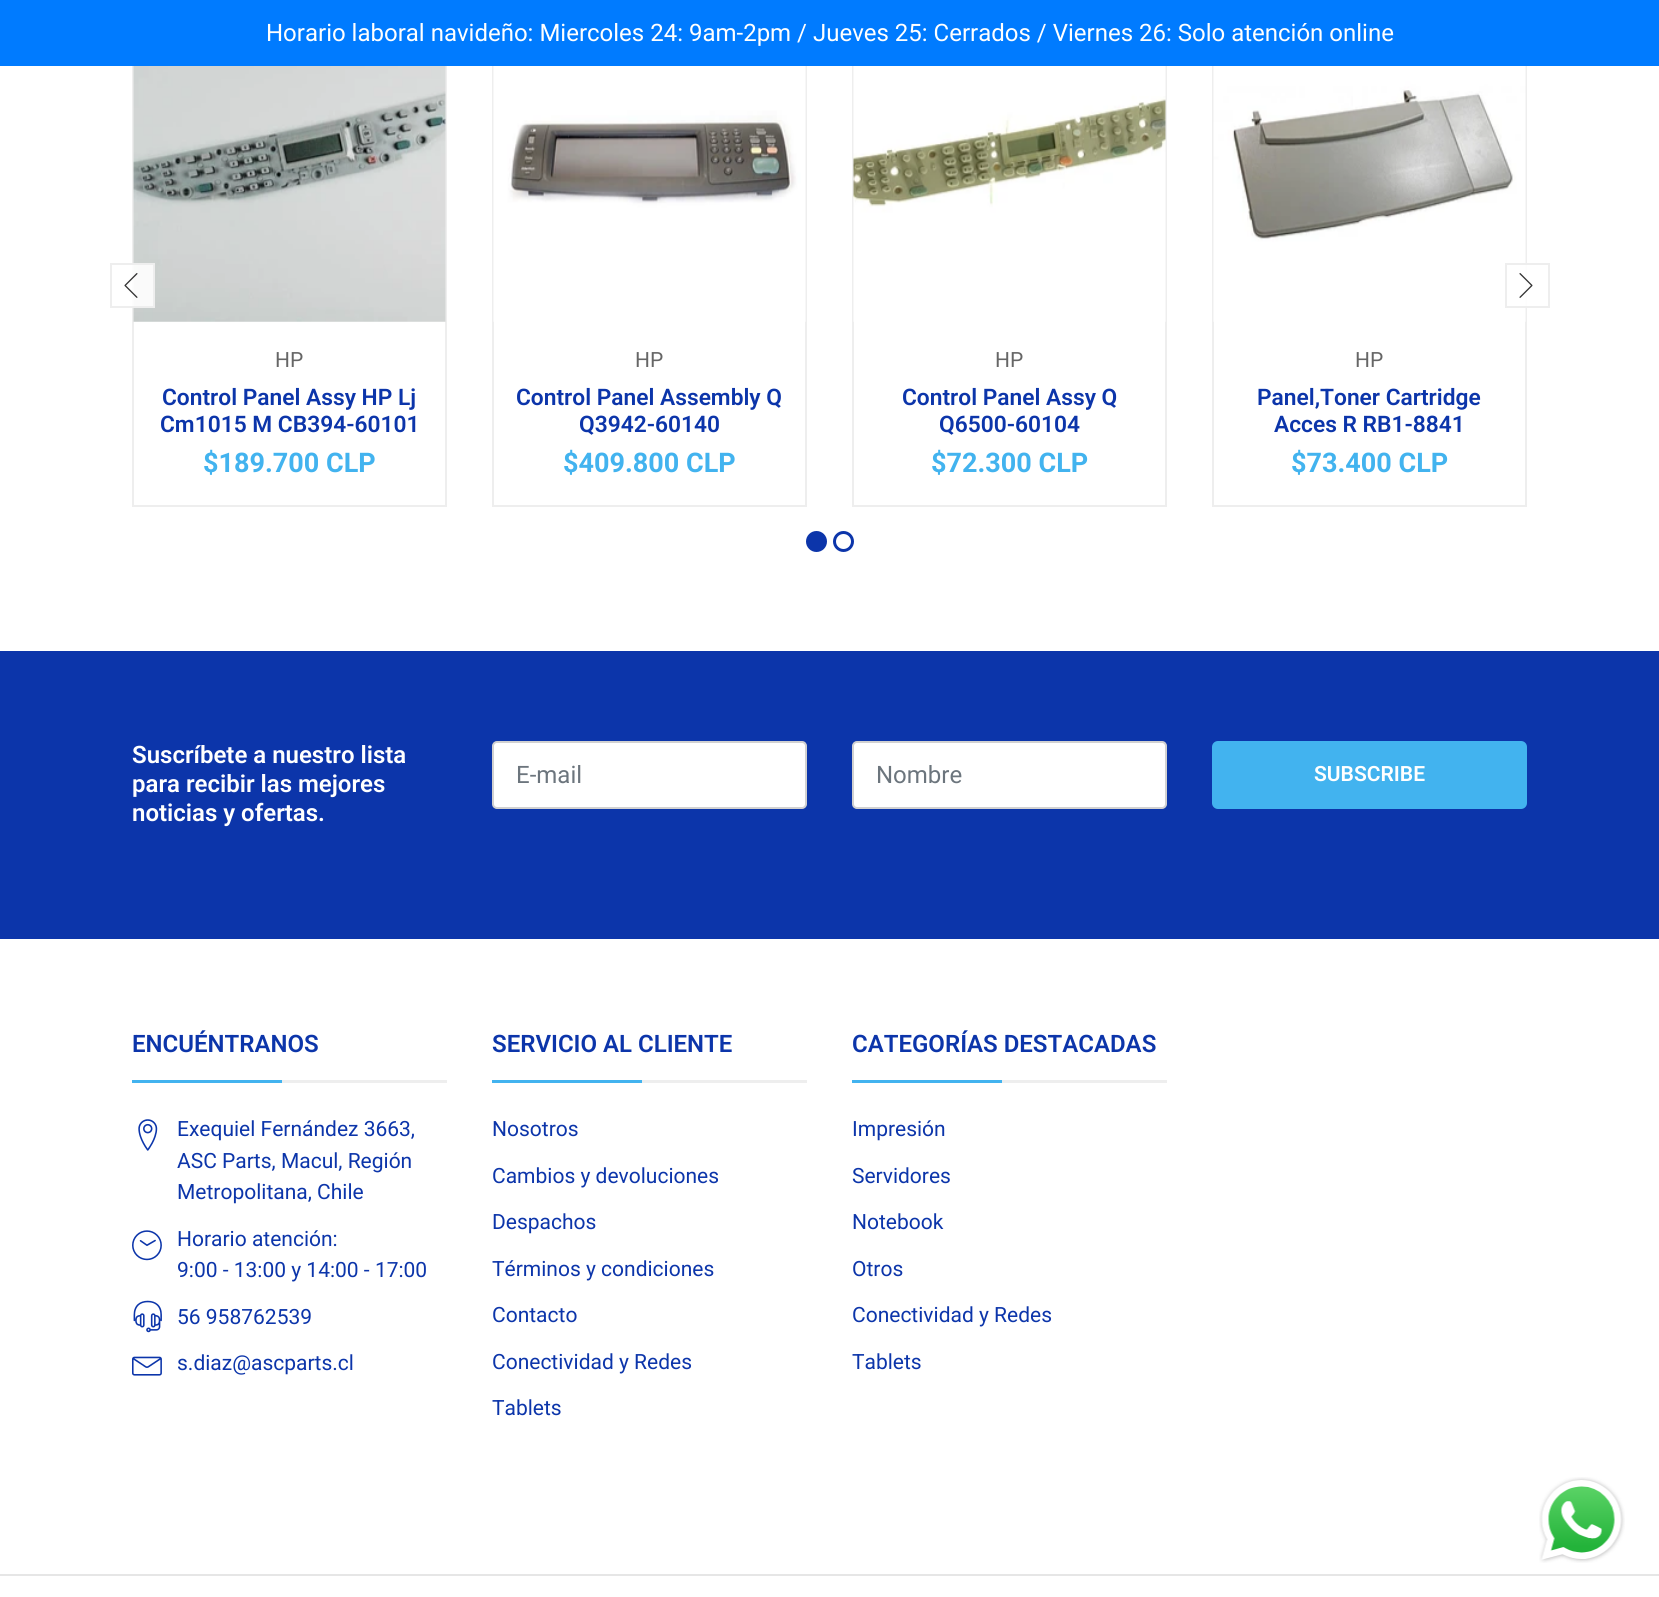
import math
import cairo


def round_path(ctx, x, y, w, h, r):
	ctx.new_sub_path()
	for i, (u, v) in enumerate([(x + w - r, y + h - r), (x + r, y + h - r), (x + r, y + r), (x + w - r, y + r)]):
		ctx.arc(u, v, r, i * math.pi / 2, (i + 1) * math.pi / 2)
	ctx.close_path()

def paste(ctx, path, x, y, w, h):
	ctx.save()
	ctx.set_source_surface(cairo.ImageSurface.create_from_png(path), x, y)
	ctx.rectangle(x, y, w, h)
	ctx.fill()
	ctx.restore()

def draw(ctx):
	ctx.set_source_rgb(1, 1, 1)
	ctx.paint()
	ctx.rectangle(133, 10, 313, 496)
	ctx.set_source_rgb(0.933, 0.933, 0.933)
	ctx.stroke()
	ctx.rectangle(493, 10, 313, 496)
	ctx.stroke()
	ctx.rectangle(853, 10, 313, 496)
	ctx.stroke()
	ctx.rectangle(1213, 10, 313, 496)
	ctx.stroke()
	ctx.set_source_rgb(0, 0.482, 1)
	ctx.rectangle(0, 0, 1659, 66)
	ctx.fill()
	ctx.select_font_face('Roboto')
	ctx.set_font_size(24)
	ctx.set_source_rgb(1, 1, 1)
	ctx.move_to(266, 41)
	ctx.show_text('Horario laboral navideño: Miercoles 24: 9am-2pm / Jueves 25: Cerrados / Viernes 26: Solo atención online')
	paste(ctx, 'media/3.png', 133, 66, 313, 256)
	ctx.set_source_rgba(1, 1, 1, 0.9)
	ctx.rectangle(132, 265, 21, 41)
	ctx.fill()
	ctx.rectangle(111, 264, 43, 43)
	ctx.set_source_rgb(0.933, 0.933, 0.933)
	ctx.stroke()
	paste(ctx, 'media/1.png', 124, 273, 14, 25)
	paste(ctx, 'media/6.png', 1213, 66, 313, 256)
	ctx.set_source_rgba(1, 1, 1, 0.9)
	ctx.rectangle(1525, 265, 2, 41)
	ctx.fill()
	ctx.rectangle(1506, 264, 43, 43)
	ctx.set_source_rgb(0.933, 0.933, 0.933)
	ctx.stroke()
	paste(ctx, 'media/2.png', 1519, 273, 14, 25)
	ctx.set_font_size(21)
	ctx.set_source_rgb(0.4, 0.4, 0.4)
	ctx.move_to(275, 367)
	ctx.show_text('HP')
	ctx.select_font_face('Roboto SemiBold')
	ctx.set_font_size(22.75)
	ctx.set_source_rgb(0.047, 0.208, 0.667)
	ctx.move_to(162, 405)
	ctx.show_text('Control Panel Assy HP Lj')
	ctx.move_to(160, 432)
	ctx.show_text('Cm1015 M CB394-60101')
	ctx.select_font_face('Roboto', cairo.FONT_SLANT_NORMAL, cairo.FONT_WEIGHT_BOLD)
	ctx.set_font_size(27)
	ctx.set_source_rgb(0.259, 0.702, 0.937)
	ctx.move_to(203, 472)
	ctx.show_text('$189.700 CLP')
	paste(ctx, 'media/4.png', 493, 66, 313, 256)
	ctx.select_font_face('Roboto')
	ctx.set_font_size(21)
	ctx.set_source_rgb(0.4, 0.4, 0.4)
	ctx.move_to(635, 367)
	ctx.show_text('HP')
	ctx.select_font_face('Roboto SemiBold')
	ctx.set_font_size(22.75)
	ctx.set_source_rgb(0.047, 0.208, 0.667)
	ctx.move_to(516, 405)
	ctx.show_text('Control Panel Assembly Q')
	ctx.move_to(579, 432)
	ctx.show_text('Q3942-60140')
	ctx.select_font_face('Roboto', cairo.FONT_SLANT_NORMAL, cairo.FONT_WEIGHT_BOLD)
	ctx.set_font_size(27)
	ctx.set_source_rgb(0.259, 0.702, 0.937)
	ctx.move_to(563, 472)
	ctx.show_text('$409.800 CLP')
	paste(ctx, 'media/5.png', 853, 66, 313, 256)
	ctx.select_font_face('Roboto')
	ctx.set_font_size(21)
	ctx.set_source_rgb(0.4, 0.4, 0.4)
	ctx.move_to(995, 367)
	ctx.show_text('HP')
	ctx.select_font_face('Roboto SemiBold')
	ctx.set_font_size(22.75)
	ctx.set_source_rgb(0.047, 0.208, 0.667)
	ctx.move_to(902, 405)
	ctx.show_text('Control Panel Assy Q')
	ctx.move_to(939, 432)
	ctx.show_text('Q6500-60104')
	ctx.select_font_face('Roboto', cairo.FONT_SLANT_NORMAL, cairo.FONT_WEIGHT_BOLD)
	ctx.set_font_size(27)
	ctx.set_source_rgb(0.259, 0.702, 0.937)
	ctx.move_to(931, 472)
	ctx.show_text('$72.300 CLP')
	ctx.select_font_face('Roboto')
	ctx.set_font_size(21)
	ctx.set_source_rgb(0.4, 0.4, 0.4)
	ctx.move_to(1355, 367)
	ctx.show_text('HP')
	ctx.select_font_face('Roboto SemiBold')
	ctx.set_font_size(22.75)
	ctx.set_source_rgb(0.047, 0.208, 0.667)
	ctx.move_to(1257, 405)
	ctx.show_text('Panel,Toner Cartridge')
	ctx.move_to(1274, 432)
	ctx.show_text('Acces R RB1-8841')
	ctx.select_font_face('Roboto', cairo.FONT_SLANT_NORMAL, cairo.FONT_WEIGHT_BOLD)
	ctx.set_font_size(27)
	ctx.set_source_rgb(0.259, 0.702, 0.937)
	ctx.move_to(1291, 472)
	ctx.show_text('$73.400 CLP')
	ctx.set_source_rgb(0.047, 0.208, 0.667)
	ctx.new_path()
	ctx.arc(816.5, 541.5, 9, 0, 2 * math.pi)
	ctx.fill_preserve()
	ctx.set_line_width(3)
	ctx.stroke()
	ctx.arc(843.5, 541.5, 9, 0, 2 * math.pi)
	ctx.stroke()
	ctx.rectangle(0, 651, 1659, 288)
	ctx.fill()
	ctx.select_font_face('Roboto SemiBold')
	ctx.set_font_size(24)
	ctx.set_source_rgb(1, 1, 1)
	for x, y, s in [
		(132, 763, 'Suscríbete a nuestro lista'),
		(132, 792, 'para recibir las mejores'),
		(132, 821, 'noticias y ofertas.'),
	]:
		ctx.move_to(x, y)
		ctx.show_text(s)
	round_path(ctx, 493, 742, 313, 66, 4)
	ctx.fill_preserve()
	ctx.set_source_rgb(0.82, 0.82, 0.82)
	ctx.set_line_width(2)
	ctx.stroke()
	ctx.select_font_face('Roboto')
	ctx.set_source_rgb(0.424, 0.459, 0.49)
	ctx.move_to(516, 783)
	ctx.show_text('E-mail')
	ctx.set_source_rgb(1, 1, 1)
	round_path(ctx, 853, 742, 313, 66, 4)
	ctx.fill_preserve()
	ctx.set_source_rgb(0.82, 0.82, 0.82)
	ctx.stroke()
	ctx.set_source_rgb(0.424, 0.459, 0.49)
	ctx.move_to(876, 783)
	ctx.show_text('Nombre')
	ctx.set_source_rgb(0.259, 0.702, 0.937)
	round_path(ctx, 1212, 741, 315, 68, 6)
	ctx.fill()
	ctx.select_font_face('Roboto SemiBold')
	ctx.set_font_size(21)
	ctx.set_source_rgb(1, 1, 1)
	ctx.move_to(1314, 781)
	ctx.show_text('SUBSCRIBE')
	ctx.set_source_rgb(0.933, 0.933, 0.933)
	ctx.rectangle(282, 1080, 165, 3)
	ctx.fill()
	ctx.set_font_size(24)
	ctx.set_source_rgb(0.047, 0.208, 0.667)
	ctx.move_to(132, 1052)
	ctx.show_text('ENCUÉNTRANOS')
	ctx.set_source_rgb(0.259, 0.702, 0.937)
	ctx.rectangle(132, 1080, 150, 3)
	ctx.fill()
	paste(ctx, 'media/7.png', 138, 1119, 20, 32)
	ctx.select_font_face('Roboto')
	ctx.set_font_size(21)
	ctx.set_source_rgb(0.047, 0.208, 0.667)
	for x, y, s in [
		(177, 1136, 'Exequiel Fernández 3663,'),
		(177, 1168, 'ASC Parts, Macul, Región'),
		(177, 1199, 'Metropolitana, Chile'),
	]:
		ctx.move_to(x, y)
		ctx.show_text(s)
	paste(ctx, 'media/8.png', 132, 1230, 30, 31)
	ctx.move_to(177, 1246)
	ctx.show_text('Horario atención:')
	ctx.move_to(177, 1277)
	ctx.show_text('9:00 - 13:00 y 14:00 - 17:00')
	paste(ctx, 'media/9.png', 133, 1300, 29, 33)
	ctx.move_to(177, 1324)
	ctx.show_text('56 958762539')
	paste(ctx, 'media/10.png', 132, 1356, 30, 20)
	ctx.move_to(177, 1370)
	ctx.show_text('s.diaz@ascparts.cl')
	ctx.set_source_rgb(0.933, 0.933, 0.933)
	ctx.rectangle(642, 1080, 165, 3)
	ctx.fill()
	ctx.select_font_face('Roboto SemiBold')
	ctx.set_font_size(24)
	ctx.set_source_rgb(0.047, 0.208, 0.667)
	ctx.move_to(492, 1052)
	ctx.show_text('SERVICIO AL CLIENTE')
	ctx.set_source_rgb(0.259, 0.702, 0.937)
	ctx.rectangle(492, 1080, 150, 3)
	ctx.fill()
	ctx.select_font_face('Roboto')
	ctx.set_font_size(21)
	ctx.set_source_rgb(0.047, 0.208, 0.667)
	for x, y, s in [
		(492, 1136, 'Nosotros'),
		(492, 1183, 'Cambios y devoluciones'),
		(492, 1229, 'Despachos'),
		(492, 1276, 'Términos y condiciones'),
		(492, 1322, 'Contacto'),
		(492, 1369, 'Conectividad y Redes'),
		(492, 1415, 'Tablets'),
	]:
		ctx.move_to(x, y)
		ctx.show_text(s)
	ctx.set_source_rgb(0.933, 0.933, 0.933)
	ctx.rectangle(1002, 1080, 165, 3)
	ctx.fill()
	ctx.select_font_face('Roboto SemiBold')
	ctx.set_font_size(24)
	ctx.set_source_rgb(0.047, 0.208, 0.667)
	ctx.move_to(852, 1052)
	ctx.show_text('CATEGORÍAS DESTACADAS')
	ctx.set_source_rgb(0.259, 0.702, 0.937)
	ctx.rectangle(852, 1080, 150, 3)
	ctx.fill()
	ctx.select_font_face('Roboto')
	ctx.set_font_size(21)
	ctx.set_source_rgb(0.047, 0.208, 0.667)
	for x, y, s in [
		(852, 1136, 'Impresión'),
		(852, 1183, 'Servidores'),
		(852, 1229, 'Notebook'),
		(852, 1276, 'Otros'),
		(852, 1322, 'Conectividad y Redes'),
		(852, 1369, 'Tablets'),
	]:
		ctx.move_to(x, y)
		ctx.show_text(s)
	ctx.set_source_rgb(0.902, 0.902, 0.902)
	ctx.rectangle(0, 1574, 1659, 2)
	ctx.fill()
	paste(ctx, 'media/11.png', 1539, 1477, 86, 86)


surface = cairo.ImageSurface(cairo.FORMAT_RGB24, 1659, 1597)
ctx = cairo.Context(surface)
options = cairo.FontOptions()
options.set_hint_metrics(cairo.HINT_METRICS_OFF)
options.set_hint_style(cairo.HINT_STYLE_NONE)
ctx.set_font_options(options)
ctx.set_miter_limit(4)
draw(ctx)
surface.write_to_png('image.png')
